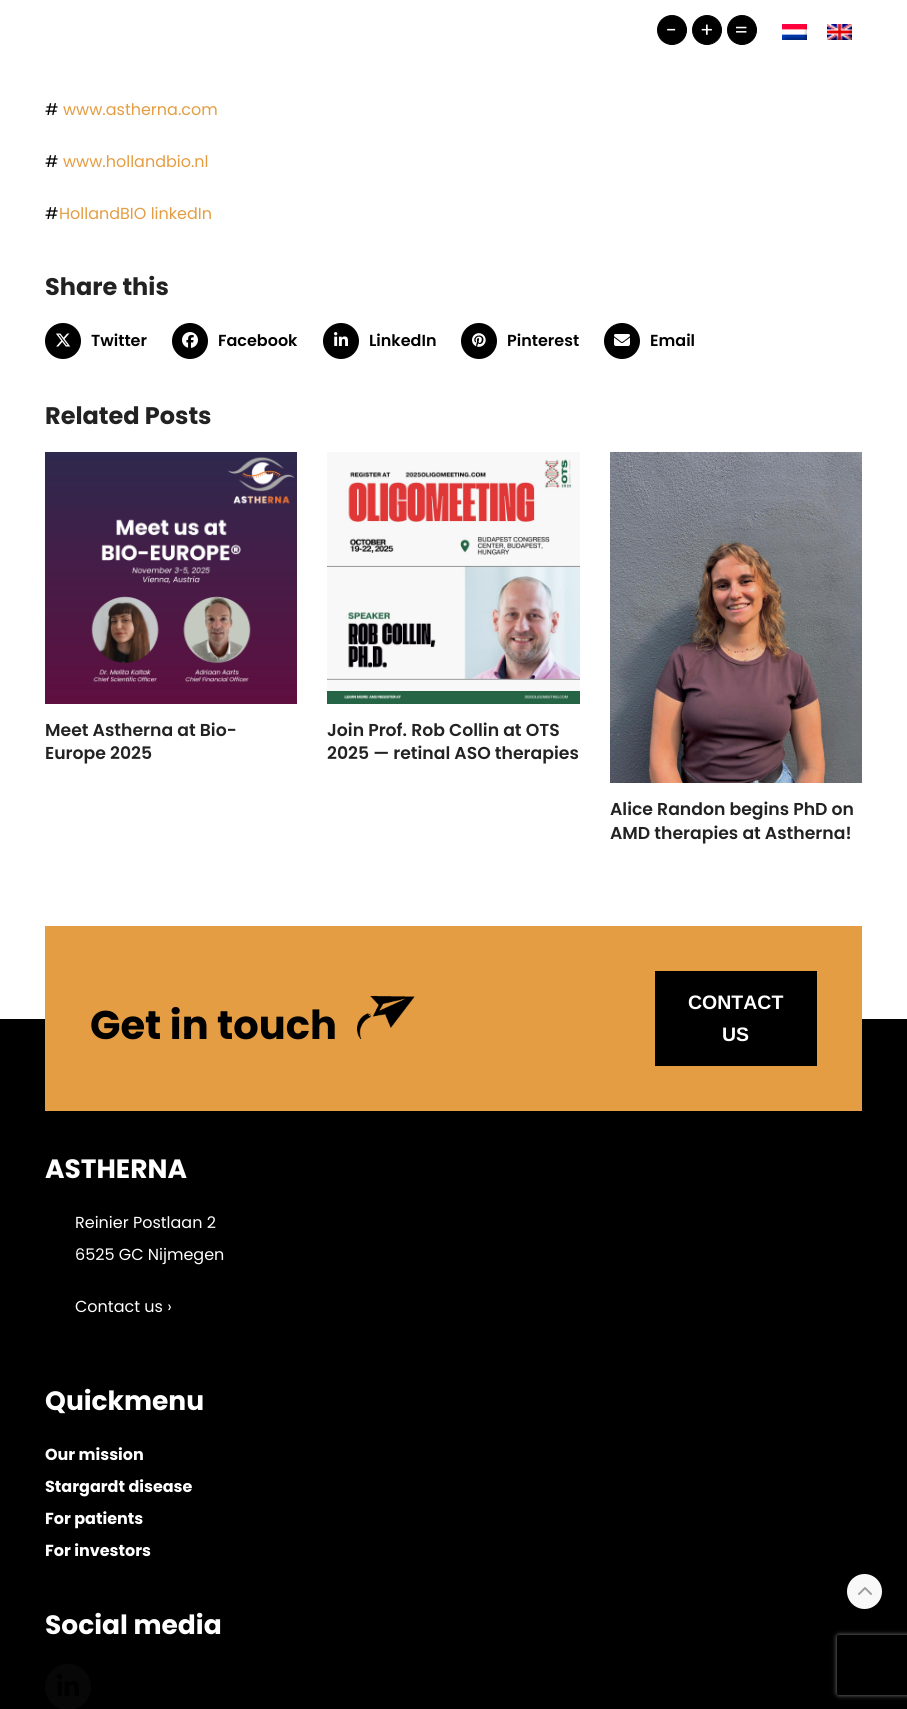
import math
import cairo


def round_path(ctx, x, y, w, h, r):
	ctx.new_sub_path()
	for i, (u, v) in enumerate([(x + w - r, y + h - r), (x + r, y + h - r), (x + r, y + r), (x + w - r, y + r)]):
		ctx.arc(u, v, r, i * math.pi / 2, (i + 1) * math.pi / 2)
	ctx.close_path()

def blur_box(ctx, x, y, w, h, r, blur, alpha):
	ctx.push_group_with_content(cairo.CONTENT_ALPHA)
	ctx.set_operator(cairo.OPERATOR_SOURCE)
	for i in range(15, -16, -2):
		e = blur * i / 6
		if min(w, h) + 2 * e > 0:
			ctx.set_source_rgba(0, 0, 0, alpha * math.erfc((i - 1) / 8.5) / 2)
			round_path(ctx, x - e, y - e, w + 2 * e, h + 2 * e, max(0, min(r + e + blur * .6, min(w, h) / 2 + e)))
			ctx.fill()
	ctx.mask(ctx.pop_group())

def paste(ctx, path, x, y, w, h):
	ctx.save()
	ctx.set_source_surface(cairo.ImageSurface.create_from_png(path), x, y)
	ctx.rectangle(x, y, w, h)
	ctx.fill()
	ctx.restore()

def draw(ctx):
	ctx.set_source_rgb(1, 1, 1)
	ctx.paint()
	ctx.set_source_rgb(0, 0, 0)
	ctx.arc(672, 30, 14.5, 0, 2 * math.pi)
	ctx.fill_preserve()
	ctx.set_line_width(1)
	ctx.stroke()
	ctx.select_font_face('Poppins')
	ctx.set_font_size(20)
	ctx.set_source_rgb(1, 1, 1)
	ctx.move_to(666, 37)
	ctx.show_text('-')
	ctx.set_source_rgb(0, 0, 0)
	ctx.new_path()
	ctx.arc(707, 30, 14.5, 0, 2 * math.pi)
	ctx.fill_preserve()
	ctx.stroke()
	ctx.set_source_rgb(1, 1, 1)
	ctx.move_to(700, 37)
	ctx.show_text('+')
	ctx.set_source_rgb(0, 0, 0)
	ctx.new_path()
	ctx.arc(742, 30, 14.5, 0, 2 * math.pi)
	ctx.fill_preserve()
	ctx.stroke()
	ctx.set_source_rgb(1, 1, 1)
	ctx.move_to(734, 37)
	ctx.show_text('=')
	paste(ctx, 'media/1.png', 782, 24, 25, 16)
	paste(ctx, 'media/2.png', 827, 24, 25, 16)
	ctx.set_font_size(16)
	ctx.set_source_rgb(0, 0, 0)
	ctx.move_to(45, 115)
	ctx.show_text('#')
	ctx.set_source_rgb(0.894, 0.616, 0.263)
	ctx.move_to(63, 115)
	ctx.show_text('www.astherna.com')
	ctx.set_source_rgb(0, 0, 0)
	ctx.move_to(45, 167)
	ctx.show_text('#')
	ctx.set_source_rgb(0.894, 0.616, 0.263)
	ctx.move_to(63, 167)
	ctx.show_text('www.hollandbio.nl')
	ctx.set_source_rgb(0, 0, 0)
	ctx.move_to(45, 219)
	ctx.show_text('#')
	ctx.set_source_rgb(0.894, 0.616, 0.263)
	ctx.move_to(59, 219)
	ctx.show_text('HollandBIO linkedIn')
	ctx.select_font_face('Poppins', cairo.FONT_SLANT_NORMAL, cairo.FONT_WEIGHT_BOLD)
	ctx.set_font_size(24)
	ctx.set_source_rgb(0.133, 0.133, 0.133)
	ctx.move_to(45, 295)
	ctx.show_text('Share this')
	ctx.set_source_rgb(0, 0, 0)
	ctx.new_path()
	ctx.arc(63, 341, 18, 0, 2 * math.pi)
	ctx.fill()
	paste(ctx, 'media/3.png', 56, 333, 15, 14)
	ctx.select_font_face('Poppins SemiBold')
	ctx.set_font_size(16)
	ctx.move_to(91, 346)
	ctx.show_text('Twitter')
	ctx.new_path()
	ctx.arc(190, 341, 18, 0, 2 * math.pi)
	ctx.fill()
	paste(ctx, 'media/4.png', 182, 332, 16, 16)
	ctx.move_to(218, 346)
	ctx.show_text('Facebook')
	ctx.new_path()
	ctx.arc(341, 341, 18, 0, 2 * math.pi)
	ctx.fill()
	paste(ctx, 'media/5.png', 334, 332, 14, 14)
	ctx.move_to(369, 346)
	ctx.show_text('LinkedIn')
	ctx.new_path()
	ctx.arc(479, 341, 18, 0, 2 * math.pi)
	ctx.fill()
	paste(ctx, 'media/6.png', 472, 333, 14, 14)
	ctx.move_to(507, 346)
	ctx.show_text('Pinterest')
	ctx.new_path()
	ctx.arc(622, 341, 18, 0, 2 * math.pi)
	ctx.fill()
	paste(ctx, 'media/7.png', 614, 334, 16, 12)
	ctx.move_to(650, 346)
	ctx.show_text('Email')
	ctx.select_font_face('Poppins', cairo.FONT_SLANT_NORMAL, cairo.FONT_WEIGHT_BOLD)
	ctx.set_font_size(24)
	ctx.set_source_rgb(0.133, 0.133, 0.133)
	ctx.move_to(45, 424)
	ctx.show_text('Related Posts')
	paste(ctx, 'media/8.png', 45, 452, 252, 252)
	ctx.select_font_face('Poppins SemiBold')
	ctx.set_font_size(17.25)
	ctx.move_to(45, 736)
	ctx.show_text('Meet Astherna at Bio-')
	ctx.move_to(45, 759)
	ctx.show_text('Europe 2025')
	paste(ctx, 'media/9.png', 327, 452, 253, 252)
	ctx.move_to(327, 736)
	ctx.show_text('Join Prof. Rob Collin at OTS')
	ctx.move_to(327, 759)
	ctx.show_text('2025 — retinal ASO therapies')
	paste(ctx, 'media/10.png', 610, 452, 252, 331)
	ctx.move_to(610, 815)
	ctx.show_text('Alice Randon begins PhD on')
	ctx.move_to(610, 839)
	ctx.show_text('AMD therapies at Astherna!')
	ctx.set_source_rgb(0, 0, 0)
	ctx.rectangle(0, 1019, 907, 690)
	ctx.fill()
	ctx.set_source_rgb(0.894, 0.616, 0.263)
	ctx.rectangle(45, 926, 817, 185)
	ctx.fill()
	ctx.select_font_face('Poppins', cairo.FONT_SLANT_NORMAL, cairo.FONT_WEIGHT_BOLD)
	ctx.set_font_size(40)
	ctx.set_source_rgb(0, 0, 0)
	ctx.move_to(90, 1039)
	ctx.show_text('Get in touch')
	paste(ctx, 'media/11.png', 357, 996, 58, 43)
	ctx.rectangle(655, 971, 162, 95)
	ctx.fill()
	ctx.select_font_face('Liberation Sans', cairo.FONT_SLANT_NORMAL, cairo.FONT_WEIGHT_BOLD)
	ctx.set_font_size(19.5)
	ctx.set_source_rgb(1, 1, 1)
	ctx.move_to(688, 1009)
	ctx.show_text('CONTACT')
	ctx.move_to(722, 1041)
	ctx.show_text('US')
	ctx.select_font_face('Poppins', cairo.FONT_SLANT_NORMAL, cairo.FONT_WEIGHT_BOLD)
	ctx.set_font_size(26.5)
	ctx.move_to(45, 1178)
	ctx.show_text('ASTHERNA')
	ctx.select_font_face('Poppins')
	ctx.set_font_size(16)
	for x, y, s in [
		(75, 1228, 'Reinier Postlaan 2'),
		(75, 1260, '6525 GC Nijmegen'),
		(75, 1312, 'Contact us ›'),
	]:
		ctx.move_to(x, y)
		ctx.show_text(s)
	ctx.select_font_face('Poppins', cairo.FONT_SLANT_NORMAL, cairo.FONT_WEIGHT_BOLD)
	ctx.set_font_size(26.5)
	ctx.move_to(45, 1410)
	ctx.show_text('Quickmenu')
	ctx.set_font_size(16)
	for x, y, s in [
		(45, 1460, 'Our mission'),
		(45, 1492, 'Stargardt disease'),
		(45, 1524, 'For patients'),
		(45, 1556, 'For investors'),
	]:
		ctx.move_to(x, y)
		ctx.show_text(s)
	ctx.set_font_size(26.5)
	ctx.move_to(45, 1634)
	ctx.show_text('Social media')
	ctx.set_source_rgb(0.031, 0.031, 0.031)
	ctx.new_path()
	ctx.arc(68, 1687, 23, 0, 2 * math.pi)
	ctx.fill()
	paste(ctx, 'media/12.png', 57, 1674, 22, 22)
	ctx.set_source_rgb(0.969, 0.969, 0.969)
	ctx.arc(864.5, 1591.5, 17.5, 0, 2 * math.pi)
	ctx.fill()
	paste(ctx, 'media/13.png', 858, 1587, 14, 8)
	ctx.save()
	ctx.set_fill_rule(cairo.FILL_RULE_EVEN_ODD)
	ctx.new_path()
	ctx.move_to(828, 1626)
	ctx.line_to(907, 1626)
	ctx.line_to(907, 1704)
	ctx.line_to(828, 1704)
	ctx.close_path()
	ctx.move_to(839, 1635)
	ctx.line_to(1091, 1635)
	ctx.curve_to(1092, 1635, 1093, 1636, 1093, 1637)
	ctx.line_to(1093, 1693)
	ctx.curve_to(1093, 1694, 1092, 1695, 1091, 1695)
	ctx.line_to(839, 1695)
	ctx.curve_to(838, 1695, 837, 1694, 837, 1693)
	ctx.line_to(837, 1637)
	ctx.curve_to(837, 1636, 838, 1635, 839, 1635)
	ctx.close_path()
	ctx.clip()
	ctx.set_source_rgb(0.502, 0.502, 0.502)
	blur_box(ctx, 837, 1635, 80, 60, 2, 2.5, 1)
	ctx.restore()


surface = cairo.ImageSurface(cairo.FORMAT_RGB24, 907, 1709)
ctx = cairo.Context(surface)
options = cairo.FontOptions()
options.set_hint_metrics(cairo.HINT_METRICS_OFF)
options.set_hint_style(cairo.HINT_STYLE_NONE)
ctx.set_font_options(options)
ctx.set_miter_limit(4)
draw(ctx)
surface.write_to_png('image.png')
